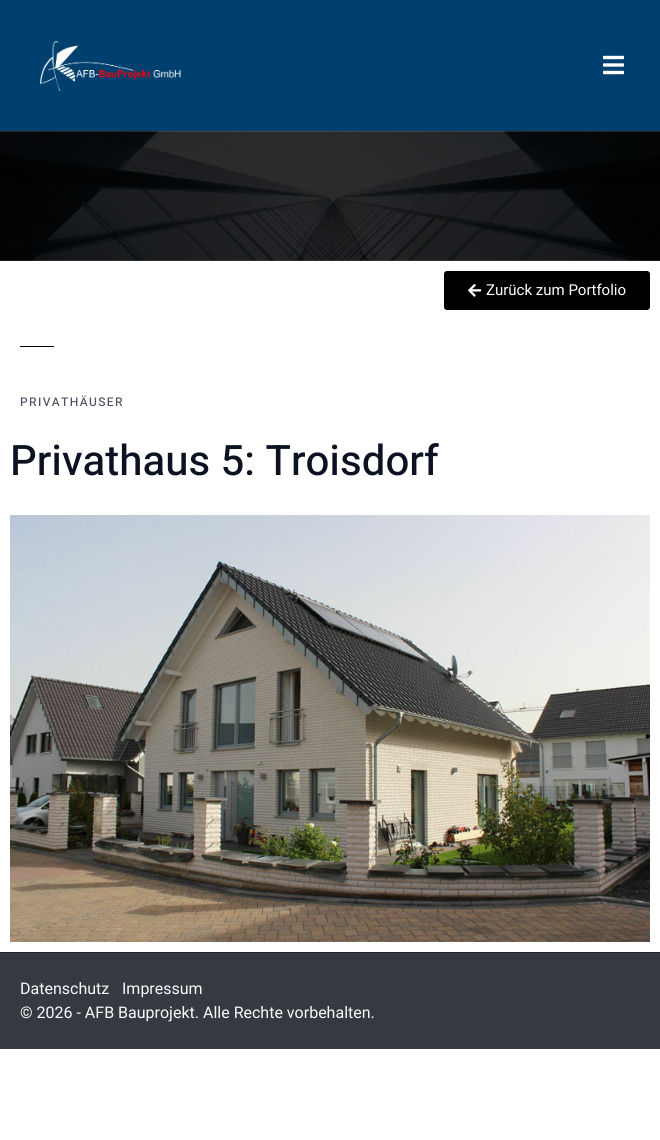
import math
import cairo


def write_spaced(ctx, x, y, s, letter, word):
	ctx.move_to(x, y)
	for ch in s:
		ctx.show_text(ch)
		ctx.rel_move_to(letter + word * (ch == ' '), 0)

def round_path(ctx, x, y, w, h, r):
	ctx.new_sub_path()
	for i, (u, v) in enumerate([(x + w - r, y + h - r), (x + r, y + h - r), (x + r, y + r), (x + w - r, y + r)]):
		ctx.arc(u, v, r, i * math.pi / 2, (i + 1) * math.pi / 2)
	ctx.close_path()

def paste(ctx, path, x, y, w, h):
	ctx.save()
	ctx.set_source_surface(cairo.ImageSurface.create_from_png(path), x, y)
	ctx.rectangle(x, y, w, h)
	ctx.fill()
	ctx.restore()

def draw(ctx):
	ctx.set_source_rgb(1, 1, 1)
	ctx.paint()
	ctx.set_source_rgb(0, 0.251, 0.435)
	ctx.rectangle(0, 0, 660, 131)
	ctx.fill()
	paste(ctx, 'media/1.png', 40, 41, 141, 50)
	paste(ctx, 'media/2.png', 603, 55, 21, 20)
	paste(ctx, 'media/3.png', 0, 131, 660, 130)
	ctx.set_source_rgb(0, 0, 0)
	round_path(ctx, 444, 271, 206, 39, 3)
	ctx.fill()
	paste(ctx, 'media/4.png', 468, 284, 14, 13)
	ctx.select_font_face('Heebo')
	ctx.set_font_size(15)
	ctx.set_source_rgb(1, 1, 1)
	ctx.move_to(486, 295)
	ctx.show_text('Zurück zum Portfolio')
	ctx.set_source_rgb(0, 0, 0)
	ctx.rectangle(20, 346, 34, 1)
	ctx.fill()
	ctx.select_font_face('Heebo Medium')
	ctx.set_font_size(12)
	ctx.set_source_rgb(0.298, 0.322, 0.384)
	write_spaced(ctx, 20, 406, 'PRIVATHÄUSER', 1.4, 0)
	ctx.set_font_size(42)
	ctx.set_source_rgb(0.047, 0.071, 0.133)
	ctx.move_to(10, 475)
	ctx.show_text('Privathaus 5: Troisdorf')
	paste(ctx, 'media/5.png', 10, 515, 640, 427)
	ctx.set_source_rgb(0.204, 0.227, 0.251)
	ctx.rectangle(0, 953, 660, 96)
	ctx.fill()
	ctx.set_source_rgb(0.129, 0.145, 0.161)
	ctx.rectangle(0, 952, 660, 1)
	ctx.fill()
	ctx.select_font_face('Roboto')
	ctx.set_font_size(16)
	ctx.set_source_rgb(0.973, 0.976, 0.98)
	for x, y, s in [
		(20, 994, 'Datenschutz'),
		(122, 994, 'Impressum'),
		(20, 1018, '© 2026 - AFB Bauprojekt. Alle Rechte vorbehalten.'),
	]:
		ctx.move_to(x, y)
		ctx.show_text(s)


surface = cairo.ImageSurface(cairo.FORMAT_RGB24, 660, 1140)
ctx = cairo.Context(surface)
options = cairo.FontOptions()
options.set_hint_metrics(cairo.HINT_METRICS_OFF)
options.set_hint_style(cairo.HINT_STYLE_NONE)
ctx.set_font_options(options)
ctx.set_miter_limit(4)
draw(ctx)
surface.write_to_png('image.png')
